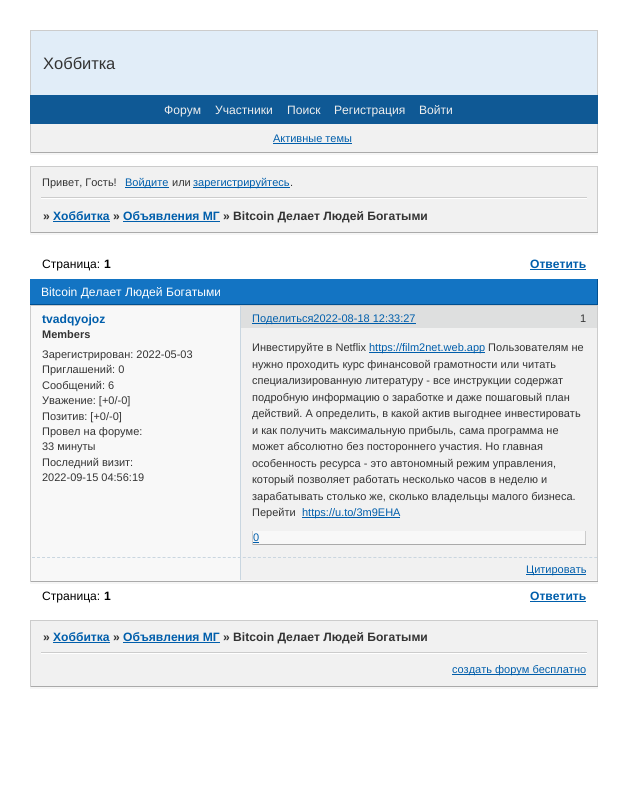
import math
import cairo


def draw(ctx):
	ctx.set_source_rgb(1, 1, 1)
	ctx.paint()
	ctx.set_source_rgb(0.882, 0.929, 0.969)
	ctx.rectangle(31, 31, 566, 64)
	ctx.fill()
	ctx.set_source_rgb(0.8, 0.8, 0.8)
	ctx.rectangle(30, 30, 568, 1)
	ctx.rectangle(597, 30, 1, 65)
	ctx.rectangle(30, 30, 1, 65)
	ctx.fill()
	ctx.select_font_face('Liberation Sans')
	ctx.set_font_size(16.5)
	ctx.set_source_rgb(0.2, 0.2, 0.2)
	ctx.move_to(43, 69)
	ctx.show_text('Хоббитка')
	ctx.set_source_rgb(0.059, 0.349, 0.584)
	ctx.rectangle(30, 95, 568, 29)
	ctx.fill()
	ctx.set_font_size(12.1)
	ctx.set_source_rgb(0.933, 0.933, 0.933)
	for x, y, s in [
		(164, 114, 'Форум'),
		(215, 114, 'Участники'),
		(287, 114, 'Поиск'),
		(334, 114, 'Регистрация'),
		(419, 114, 'Войти'),
	]:
		ctx.move_to(x, y)
		ctx.show_text(s)
	ctx.set_source_rgb(0.961, 0.961, 0.961)
	ctx.rectangle(30, 153, 568, 2)
	ctx.fill()
	ctx.set_source_rgb(0.945, 0.945, 0.945)
	ctx.rectangle(31, 124, 566, 28)
	ctx.fill()
	ctx.set_source_rgb(0.8, 0.8, 0.8)
	ctx.rectangle(597, 124, 1, 29)
	ctx.fill()
	ctx.set_source_rgb(0.667, 0.667, 0.667)
	ctx.rectangle(30, 152, 568, 1)
	ctx.fill()
	ctx.set_source_rgb(0.8, 0.8, 0.8)
	ctx.rectangle(30, 124, 1, 29)
	ctx.fill()
	ctx.set_font_size(11)
	ctx.set_source_rgb(0, 0.369, 0.671)
	ctx.move_to(273, 142)
	ctx.show_text('Активные темы')
	ctx.rectangle(273, 143, 79, 1)
	ctx.fill()
	ctx.set_source_rgb(0.945, 0.945, 0.945)
	ctx.rectangle(31, 167, 566, 65)
	ctx.fill()
	ctx.set_source_rgb(0.8, 0.8, 0.8)
	ctx.rectangle(30, 166, 568, 1)
	ctx.rectangle(597, 166, 1, 67)
	ctx.rectangle(30, 166, 1, 33)
	ctx.fill()
	ctx.set_source_rgb(0.2, 0.2, 0.2)
	ctx.move_to(42, 186)
	ctx.show_text('Привет, Гость!')
	ctx.set_source_rgb(0, 0.369, 0.671)
	ctx.rectangle(125, 187, 44, 1)
	ctx.fill()
	ctx.move_to(125, 186)
	ctx.show_text('Войдите')
	ctx.set_source_rgb(0.2, 0.2, 0.2)
	ctx.move_to(172, 186)
	ctx.show_text('или')
	ctx.set_source_rgb(0, 0.369, 0.671)
	ctx.rectangle(193, 187, 97, 1)
	ctx.fill()
	ctx.move_to(193, 186)
	ctx.show_text('зарегистрируйтесь')
	ctx.set_source_rgb(0.2, 0.2, 0.2)
	ctx.move_to(290, 186)
	ctx.show_text('.')
	ctx.set_source_rgb(0.8, 0.8, 0.8)
	ctx.rectangle(41, 197, 546, 1)
	ctx.fill()
	ctx.set_source_rgb(1, 1, 1)
	ctx.rectangle(41, 198, 546, 1)
	ctx.fill()
	ctx.set_source_rgb(0.961, 0.961, 0.961)
	ctx.rectangle(30, 233, 568, 2)
	ctx.fill()
	ctx.set_source_rgb(0.667, 0.667, 0.667)
	ctx.rectangle(30, 232, 568, 1)
	ctx.fill()
	ctx.set_source_rgb(0.8, 0.8, 0.8)
	ctx.rectangle(30, 197, 1, 36)
	ctx.fill()
	ctx.select_font_face('Liberation Sans', cairo.FONT_SLANT_NORMAL, cairo.FONT_WEIGHT_BOLD)
	ctx.set_font_size(12.1)
	ctx.set_source_rgb(0.2, 0.2, 0.2)
	ctx.move_to(43, 220)
	ctx.show_text('»')
	ctx.set_source_rgb(0, 0.369, 0.671)
	ctx.move_to(53, 220)
	ctx.show_text('Хоббитка')
	ctx.rectangle(53, 221, 57, 1)
	ctx.fill()
	ctx.set_source_rgb(0.2, 0.2, 0.2)
	ctx.move_to(113, 220)
	ctx.show_text('»')
	ctx.set_source_rgb(0, 0.369, 0.671)
	ctx.move_to(123, 220)
	ctx.show_text('Объявления МГ')
	ctx.rectangle(123, 221, 97, 1)
	ctx.fill()
	ctx.set_source_rgb(0.2, 0.2, 0.2)
	ctx.move_to(223, 220)
	ctx.show_text('» Bitcoin Делает Людей Богатыми')
	ctx.select_font_face('Liberation Sans')
	ctx.set_source_rgb(0, 0, 0)
	ctx.move_to(42, 268)
	ctx.show_text('Страница:')
	ctx.select_font_face('Liberation Sans', cairo.FONT_SLANT_NORMAL, cairo.FONT_WEIGHT_BOLD)
	ctx.move_to(104, 268)
	ctx.show_text('1')
	ctx.set_source_rgb(0, 0.369, 0.671)
	ctx.move_to(530, 268)
	ctx.show_text('Ответить')
	ctx.rectangle(530, 269, 56, 1)
	ctx.fill()
	ctx.set_source_rgb(0.078, 0.455, 0.765)
	ctx.rectangle(30, 279, 567, 25)
	ctx.fill()
	ctx.set_source_rgb(0, 0.31, 0.565)
	ctx.rectangle(597, 279, 1, 26)
	ctx.rectangle(30, 304, 568, 1)
	ctx.fill()
	ctx.select_font_face('Liberation Sans')
	ctx.set_source_rgb(1, 1, 1)
	ctx.move_to(41, 296)
	ctx.show_text('Bitcoin Делает Людей Богатыми')
	ctx.set_source_rgb(0.961, 0.961, 0.961)
	ctx.rectangle(30, 582, 568, 2)
	ctx.fill()
	ctx.set_source_rgb(0.788, 0.839, 0.878)
	ctx.rectangle(240, 306, 1, 23)
	ctx.fill()
	ctx.set_source_rgb(0.969, 0.969, 0.969)
	ctx.rectangle(31, 328, 566, 253)
	ctx.fill()
	ctx.set_source_rgb(0.8, 0.8, 0.8)
	ctx.rectangle(30, 305, 568, 1)
	ctx.rectangle(597, 305, 1, 277)
	ctx.fill()
	ctx.set_source_rgb(0.667, 0.667, 0.667)
	ctx.rectangle(30, 581, 568, 1)
	ctx.fill()
	ctx.set_source_rgb(0.8, 0.8, 0.8)
	ctx.rectangle(30, 305, 1, 24)
	ctx.rectangle(30, 328, 1, 254)
	ctx.fill()
	ctx.set_source_rgb(0.969, 0.969, 0.969)
	ctx.rectangle(31, 306, 209, 22)
	ctx.fill()
	ctx.select_font_face('Liberation Sans', cairo.FONT_SLANT_NORMAL, cairo.FONT_WEIGHT_BOLD)
	ctx.set_source_rgb(0, 0.369, 0.671)
	ctx.move_to(42, 323)
	ctx.show_text('tvadqyojoz')
	ctx.set_font_size(11)
	ctx.set_source_rgb(0.2, 0.2, 0.2)
	ctx.move_to(42, 338)
	ctx.show_text('Members')
	ctx.select_font_face('Liberation Sans')
	for x, y, s in [
		(42, 358, 'Зарегистрирован: 2022-05-03'),
		(42, 373, 'Приглашений: 0'),
		(42, 389, 'Сообщений: 6'),
		(42, 404, 'Уважение: [+0/-0]'),
		(42, 420, 'Позитив: [+0/-0]'),
		(42, 435, 'Провел на форуме:'),
		(42, 450, '33 минуты'),
		(42, 466, 'Последний визит:'),
		(42, 481, '2022-09-15 04:56:19'),
	]:
		ctx.move_to(x, y)
		ctx.show_text(s)
	ctx.set_source_rgb(0.945, 0.945, 0.945)
	ctx.rectangle(241, 328, 356, 252)
	ctx.fill()
	ctx.set_source_rgb(0.788, 0.839, 0.878)
	ctx.rectangle(240, 328, 1, 252)
	ctx.fill()
	ctx.set_source_rgb(0.2, 0.2, 0.2)
	ctx.move_to(252, 351)
	ctx.show_text('Инвестируйте в Netflix')
	ctx.set_source_rgb(0, 0.369, 0.671)
	ctx.rectangle(369, 352, 116, 1)
	ctx.fill()
	ctx.move_to(369, 351)
	ctx.show_text('https://film2net.web.app')
	ctx.set_source_rgb(0.2, 0.2, 0.2)
	for x, y, s in [
		(488, 351, 'Пользователям не'),
		(252, 368, 'нужно проходить курс финансовой грамотности или читать'),
		(252, 384, 'специализированную литературу - все инструкции содержат'),
		(252, 401, 'подробную информацию о заработке и даже пошаговый план'),
		(252, 417, 'действий. А определить, в какой актив выгоднее инвестировать'),
		(252, 434, 'и как получить максимальную прибыль, сама программа не'),
		(252, 450, 'может абсолютно без постороннего участия. Но главная'),
		(252, 467, 'особенность ресурса - это автономный режим управления,'),
		(252, 483, 'который позволяет работать несколько часов в неделю и'),
		(252, 500, 'зарабатывать столько же, сколько владельцы малого бизнеса.'),
		(252, 516, 'Перейти'),
	]:
		ctx.move_to(x, y)
		ctx.show_text(s)
	ctx.set_source_rgb(0, 0.369, 0.671)
	ctx.rectangle(302, 517, 98, 1)
	ctx.fill()
	ctx.move_to(302, 516)
	ctx.show_text('https://u.to/3m9EHA')
	ctx.set_source_rgb(0.969, 0.969, 0.969)
	ctx.rectangle(253, 531, 332, 13)
	ctx.fill()
	ctx.set_source_rgb(0.8, 0.8, 0.8)
	ctx.rectangle(585, 531, 1, 14)
	ctx.fill()
	ctx.set_source_rgb(0.667, 0.667, 0.667)
	ctx.rectangle(252, 544, 334, 1)
	ctx.fill()
	ctx.set_source_rgb(0.8, 0.8, 0.8)
	ctx.rectangle(252, 531, 1, 14)
	ctx.fill()
	ctx.set_source_rgb(0, 0.369, 0.671)
	ctx.move_to(253, 541)
	ctx.show_text('0')
	ctx.rectangle(253, 542, 6, 1)
	ctx.fill()
	ctx.new_path()
	ctx.move_to(32, 557.5)
	ctx.line_to(597, 557.5)
	ctx.set_source_rgb(0.788, 0.839, 0.878)
	ctx.set_line_width(1)
	ctx.set_dash([3, 2.02])
	ctx.stroke()
	ctx.set_source_rgb(0, 0.369, 0.671)
	ctx.rectangle(526, 574, 60, 1)
	ctx.fill()
	ctx.move_to(526, 573)
	ctx.show_text('Цитировать')
	ctx.set_source_rgb(0.871, 0.875, 0.875)
	ctx.rectangle(241, 306, 356, 22)
	ctx.fill()
	ctx.set_source_rgb(0, 0.369, 0.671)
	ctx.rectangle(252, 323, 164, 1)
	ctx.fill()
	ctx.move_to(252, 322)
	ctx.show_text('Поделиться2022-08-18 12:33:27')
	ctx.set_source_rgb(0.2, 0.2, 0.2)
	ctx.move_to(580, 322)
	ctx.show_text('1')
	ctx.set_font_size(12.1)
	ctx.set_source_rgb(0, 0, 0)
	ctx.move_to(42, 600)
	ctx.show_text('Страница:')
	ctx.select_font_face('Liberation Sans', cairo.FONT_SLANT_NORMAL, cairo.FONT_WEIGHT_BOLD)
	ctx.move_to(104, 600)
	ctx.show_text('1')
	ctx.set_source_rgb(0, 0.369, 0.671)
	ctx.move_to(530, 600)
	ctx.show_text('Ответить')
	ctx.rectangle(530, 601, 56, 1)
	ctx.fill()
	ctx.set_source_rgb(0.8, 0.8, 0.8)
	ctx.rectangle(30, 620, 568, 1)
	ctx.rectangle(597, 652, 1, 35)
	ctx.rectangle(597, 620, 1, 34)
	ctx.fill()
	ctx.set_source_rgb(0.667, 0.667, 0.667)
	ctx.rectangle(30, 686, 568, 1)
	ctx.fill()
	ctx.set_source_rgb(0.8, 0.8, 0.8)
	ctx.rectangle(30, 652, 1, 35)
	ctx.rectangle(30, 620, 1, 34)
	ctx.fill()
	ctx.set_source_rgb(0.945, 0.945, 0.945)
	ctx.rectangle(31, 621, 566, 65)
	ctx.fill()
	ctx.set_source_rgb(0.2, 0.2, 0.2)
	ctx.move_to(43, 641)
	ctx.show_text('»')
	ctx.set_source_rgb(0, 0.369, 0.671)
	ctx.move_to(53, 641)
	ctx.show_text('Хоббитка')
	ctx.rectangle(53, 642, 57, 1)
	ctx.fill()
	ctx.set_source_rgb(0.2, 0.2, 0.2)
	ctx.move_to(113, 641)
	ctx.show_text('»')
	ctx.set_source_rgb(0, 0.369, 0.671)
	ctx.move_to(123, 641)
	ctx.show_text('Объявления МГ')
	ctx.rectangle(123, 642, 97, 1)
	ctx.fill()
	ctx.set_source_rgb(0.2, 0.2, 0.2)
	ctx.move_to(223, 641)
	ctx.show_text('» Bitcoin Делает Людей Богатыми')
	ctx.set_source_rgb(0.8, 0.8, 0.8)
	ctx.rectangle(41, 652, 546, 1)
	ctx.fill()
	ctx.set_source_rgb(1, 1, 1)
	ctx.rectangle(41, 653, 546, 1)
	ctx.fill()
	ctx.set_source_rgb(0.961, 0.961, 0.961)
	ctx.rectangle(30, 687, 568, 2)
	ctx.fill()
	ctx.set_source_rgb(0, 0.369, 0.671)
	ctx.rectangle(452, 674, 134, 1)
	ctx.fill()
	ctx.select_font_face('Liberation Sans')
	ctx.set_font_size(11)
	ctx.move_to(452, 673)
	ctx.show_text('создать форум бесплатно')


surface = cairo.ImageSurface(cairo.FORMAT_RGB24, 628, 795)
ctx = cairo.Context(surface)
options = cairo.FontOptions()
options.set_hint_metrics(cairo.HINT_METRICS_OFF)
options.set_hint_style(cairo.HINT_STYLE_NONE)
ctx.set_font_options(options)
ctx.set_miter_limit(4)
draw(ctx)
surface.write_to_png('image.png')
